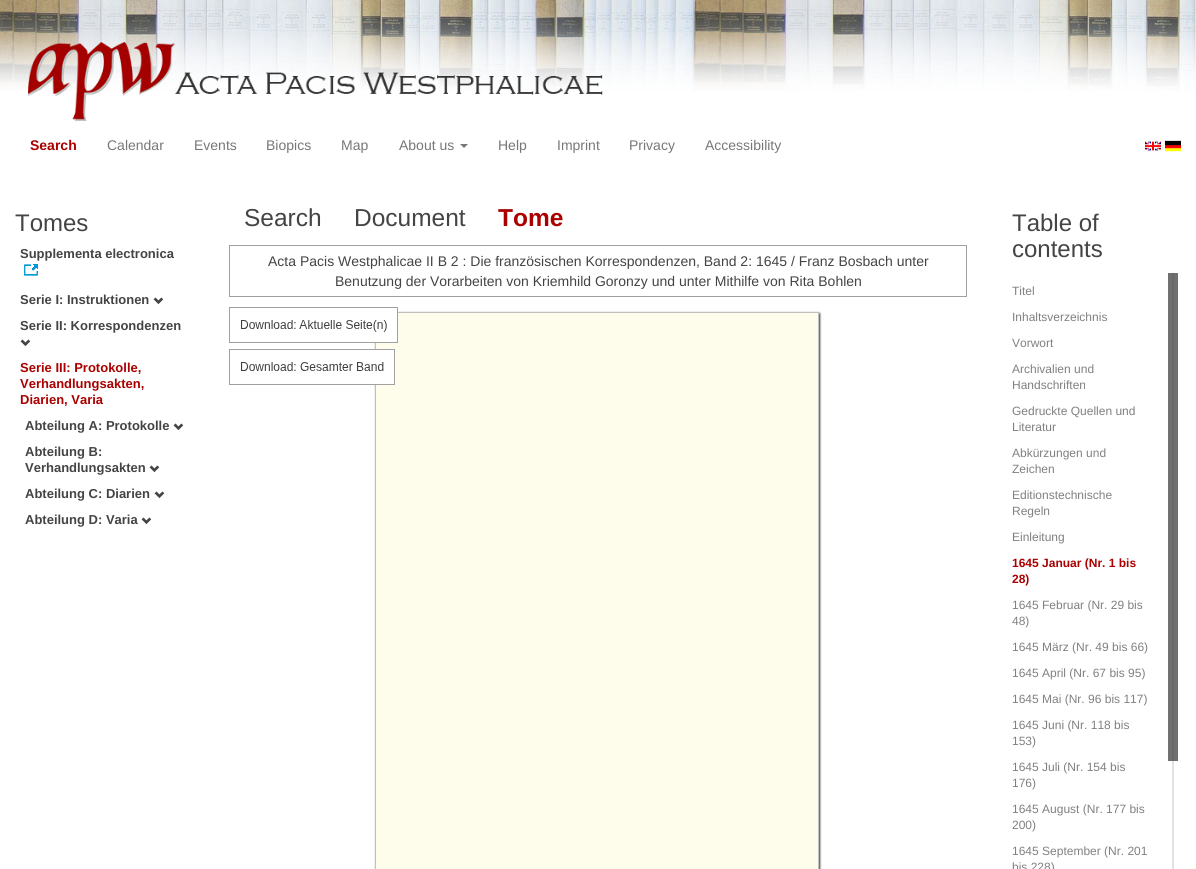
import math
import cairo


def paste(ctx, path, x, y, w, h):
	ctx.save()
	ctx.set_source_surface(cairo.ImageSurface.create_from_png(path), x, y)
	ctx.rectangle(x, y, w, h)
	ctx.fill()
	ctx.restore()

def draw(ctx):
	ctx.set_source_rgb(1, 1, 1)
	ctx.paint()
	ctx.set_source_rgb(0.439, 0.439, 0.439)
	ctx.rectangle(1168, 273, 10, 488)
	ctx.fill()
	paste(ctx, 'media/1.png', 0, 0, 1196, 91)
	paste(ctx, 'media/2.png', 28, 42, 575, 79)
	ctx.select_font_face('Liberation Sans', cairo.FONT_SLANT_NORMAL, cairo.FONT_WEIGHT_BOLD)
	ctx.set_font_size(14)
	ctx.set_source_rgb(0.667, 0, 0)
	ctx.move_to(30, 150)
	ctx.show_text('Search')
	ctx.select_font_face('Liberation Sans')
	ctx.set_source_rgb(0.467, 0.467, 0.467)
	for x, y, s in [
		(107, 150, 'Calendar'),
		(194, 150, 'Events'),
		(266, 150, 'Biopics'),
		(341, 150, 'Map'),
		(399, 150, 'About us'),
	]:
		ctx.move_to(x, y)
		ctx.show_text(s)
	ctx.new_path()
	ctx.move_to(460, 144)
	ctx.line_to(468, 144)
	ctx.line_to(464, 148)
	ctx.close_path()
	ctx.fill()
	for x, y, s in [
		(498, 150, 'Help'),
		(557, 150, 'Imprint'),
		(629, 150, 'Privacy'),
		(705, 150, 'Accessibility'),
	]:
		ctx.move_to(x, y)
		ctx.show_text(s)
	paste(ctx, 'media/3.png', 1145, 141, 16, 10)
	paste(ctx, 'media/4.png', 1165, 140, 16, 12)
	ctx.set_font_size(24)
	ctx.set_source_rgb(0.267, 0.267, 0.267)
	ctx.move_to(15, 231)
	ctx.show_text('Tomes')
	ctx.select_font_face('Liberation Sans', cairo.FONT_SLANT_NORMAL, cairo.FONT_WEIGHT_BOLD)
	ctx.set_font_size(13)
	ctx.move_to(20, 258)
	ctx.show_text('Supplementa electronica')
	paste(ctx, 'media/5.png', 24, 264, 14, 12)
	ctx.move_to(20, 304)
	ctx.show_text('Serie I: Instruktionen')
	paste(ctx, 'media/6.png', 153, 297, 11, 8)
	ctx.move_to(20, 330)
	ctx.show_text('Serie II: Korrespondenzen')
	paste(ctx, 'media/6.png', 20, 339, 11, 8)
	ctx.set_source_rgb(0.667, 0, 0)
	for x, y, s in [
		(20, 372, 'Serie III: Protokolle,'),
		(20, 388, 'Verhandlungsakten,'),
		(20, 404, 'Diarien, Varia'),
	]:
		ctx.move_to(x, y)
		ctx.show_text(s)
	ctx.set_source_rgb(0.267, 0.267, 0.267)
	ctx.move_to(25, 430)
	ctx.show_text('Abteilung A: Protokolle')
	paste(ctx, 'media/6.png', 173, 423, 11, 8)
	ctx.move_to(25, 456)
	ctx.show_text('Abteilung B:')
	ctx.move_to(25, 472)
	ctx.show_text('Verhandlungsakten')
	paste(ctx, 'media/6.png', 149, 465, 11, 8)
	ctx.move_to(25, 498)
	ctx.show_text('Abteilung C: Diarien')
	paste(ctx, 'media/6.png', 154, 491, 11, 8)
	ctx.move_to(25, 524)
	ctx.show_text('Abteilung D: Varia')
	paste(ctx, 'media/6.png', 141, 517, 11, 8)
	ctx.select_font_face('Liberation Sans')
	ctx.set_font_size(24.5)
	ctx.move_to(244, 226)
	ctx.show_text('Search')
	ctx.move_to(354, 226)
	ctx.show_text('Document')
	ctx.select_font_face('Liberation Sans', cairo.FONT_SLANT_NORMAL, cairo.FONT_WEIGHT_BOLD)
	ctx.set_source_rgb(0.667, 0, 0)
	ctx.move_to(498, 226)
	ctx.show_text('Tome')
	ctx.rectangle(229.5, 245.5, 737, 51)
	ctx.set_source_rgb(0.627, 0.627, 0.627)
	ctx.set_line_width(1)
	ctx.stroke()
	ctx.select_font_face('Liberation Sans')
	ctx.set_font_size(14)
	ctx.set_source_rgb(0.267, 0.267, 0.267)
	ctx.move_to(268, 266)
	ctx.show_text('Acta Pacis Westphalicae II B 2 : Die französischen Korrespondenzen, Band 2: 1645 / Franz Bosbach unter')
	ctx.move_to(335, 286)
	ctx.show_text('Benutzung der Vorarbeiten von Kriemhild Goronzy und unter Mithilfe von Rita Bohlen')
	paste(ctx, 'media/7.png', 229, 307, 593, 562)
	ctx.set_font_size(24)
	ctx.move_to(1012, 231)
	ctx.show_text('Table of')
	ctx.move_to(1012, 257)
	ctx.show_text('contents')
	ctx.set_font_size(12)
	ctx.set_source_rgb(0.502, 0.502, 0.502)
	for x, y, s in [
		(1012, 295, 'Titel'),
		(1012, 321, 'Inhaltsverzeichnis'),
		(1012, 347, 'Vorwort'),
		(1012, 373, 'Archivalien und'),
		(1012, 389, 'Handschriften'),
		(1012, 415, 'Gedruckte Quellen und'),
		(1012, 431, 'Literatur'),
		(1012, 457, 'Abkürzungen und'),
		(1012, 473, 'Zeichen'),
		(1012, 499, 'Editionstechnische'),
		(1012, 515, 'Regeln'),
		(1012, 541, 'Einleitung'),
	]:
		ctx.move_to(x, y)
		ctx.show_text(s)
	ctx.select_font_face('Liberation Sans', cairo.FONT_SLANT_NORMAL, cairo.FONT_WEIGHT_BOLD)
	ctx.set_source_rgb(0.667, 0, 0)
	ctx.move_to(1012, 567)
	ctx.show_text('1645 Januar (Nr. 1 bis')
	ctx.move_to(1012, 583)
	ctx.show_text('28)')
	ctx.select_font_face('Liberation Sans')
	ctx.set_source_rgb(0.502, 0.502, 0.502)
	for x, y, s in [
		(1012, 609, '1645 Februar (Nr. 29 bis'),
		(1012, 625, '48)'),
		(1012, 651, '1645 März (Nr. 49 bis 66)'),
		(1012, 677, '1645 April (Nr. 67 bis 95)'),
		(1012, 703, '1645 Mai (Nr. 96 bis 117)'),
		(1012, 729, '1645 Juni (Nr. 118 bis'),
		(1012, 745, '153)'),
		(1012, 771, '1645 Juli (Nr. 154 bis'),
		(1012, 787, '176)'),
		(1012, 813, '1645 August (Nr. 177 bis'),
		(1012, 829, '200)'),
		(1012, 855, '1645 September (Nr. 201'),
		(1012, 871, 'bis 228)'),
	]:
		ctx.move_to(x, y)
		ctx.show_text(s)
	ctx.set_source_rgb(0.886, 0.886, 0.886)
	ctx.rectangle(1172, 761, 2, 108)
	ctx.fill()
	ctx.set_source_rgb(0.412, 0.412, 0.412)
	ctx.rectangle(1172, 273, 2, 488)
	ctx.fill()


surface = cairo.ImageSurface(cairo.FORMAT_RGB24, 1196, 869)
ctx = cairo.Context(surface)
options = cairo.FontOptions()
options.set_hint_metrics(cairo.HINT_METRICS_OFF)
options.set_hint_style(cairo.HINT_STYLE_NONE)
ctx.set_font_options(options)
ctx.set_miter_limit(4)
draw(ctx)
surface.write_to_png('image.png')
